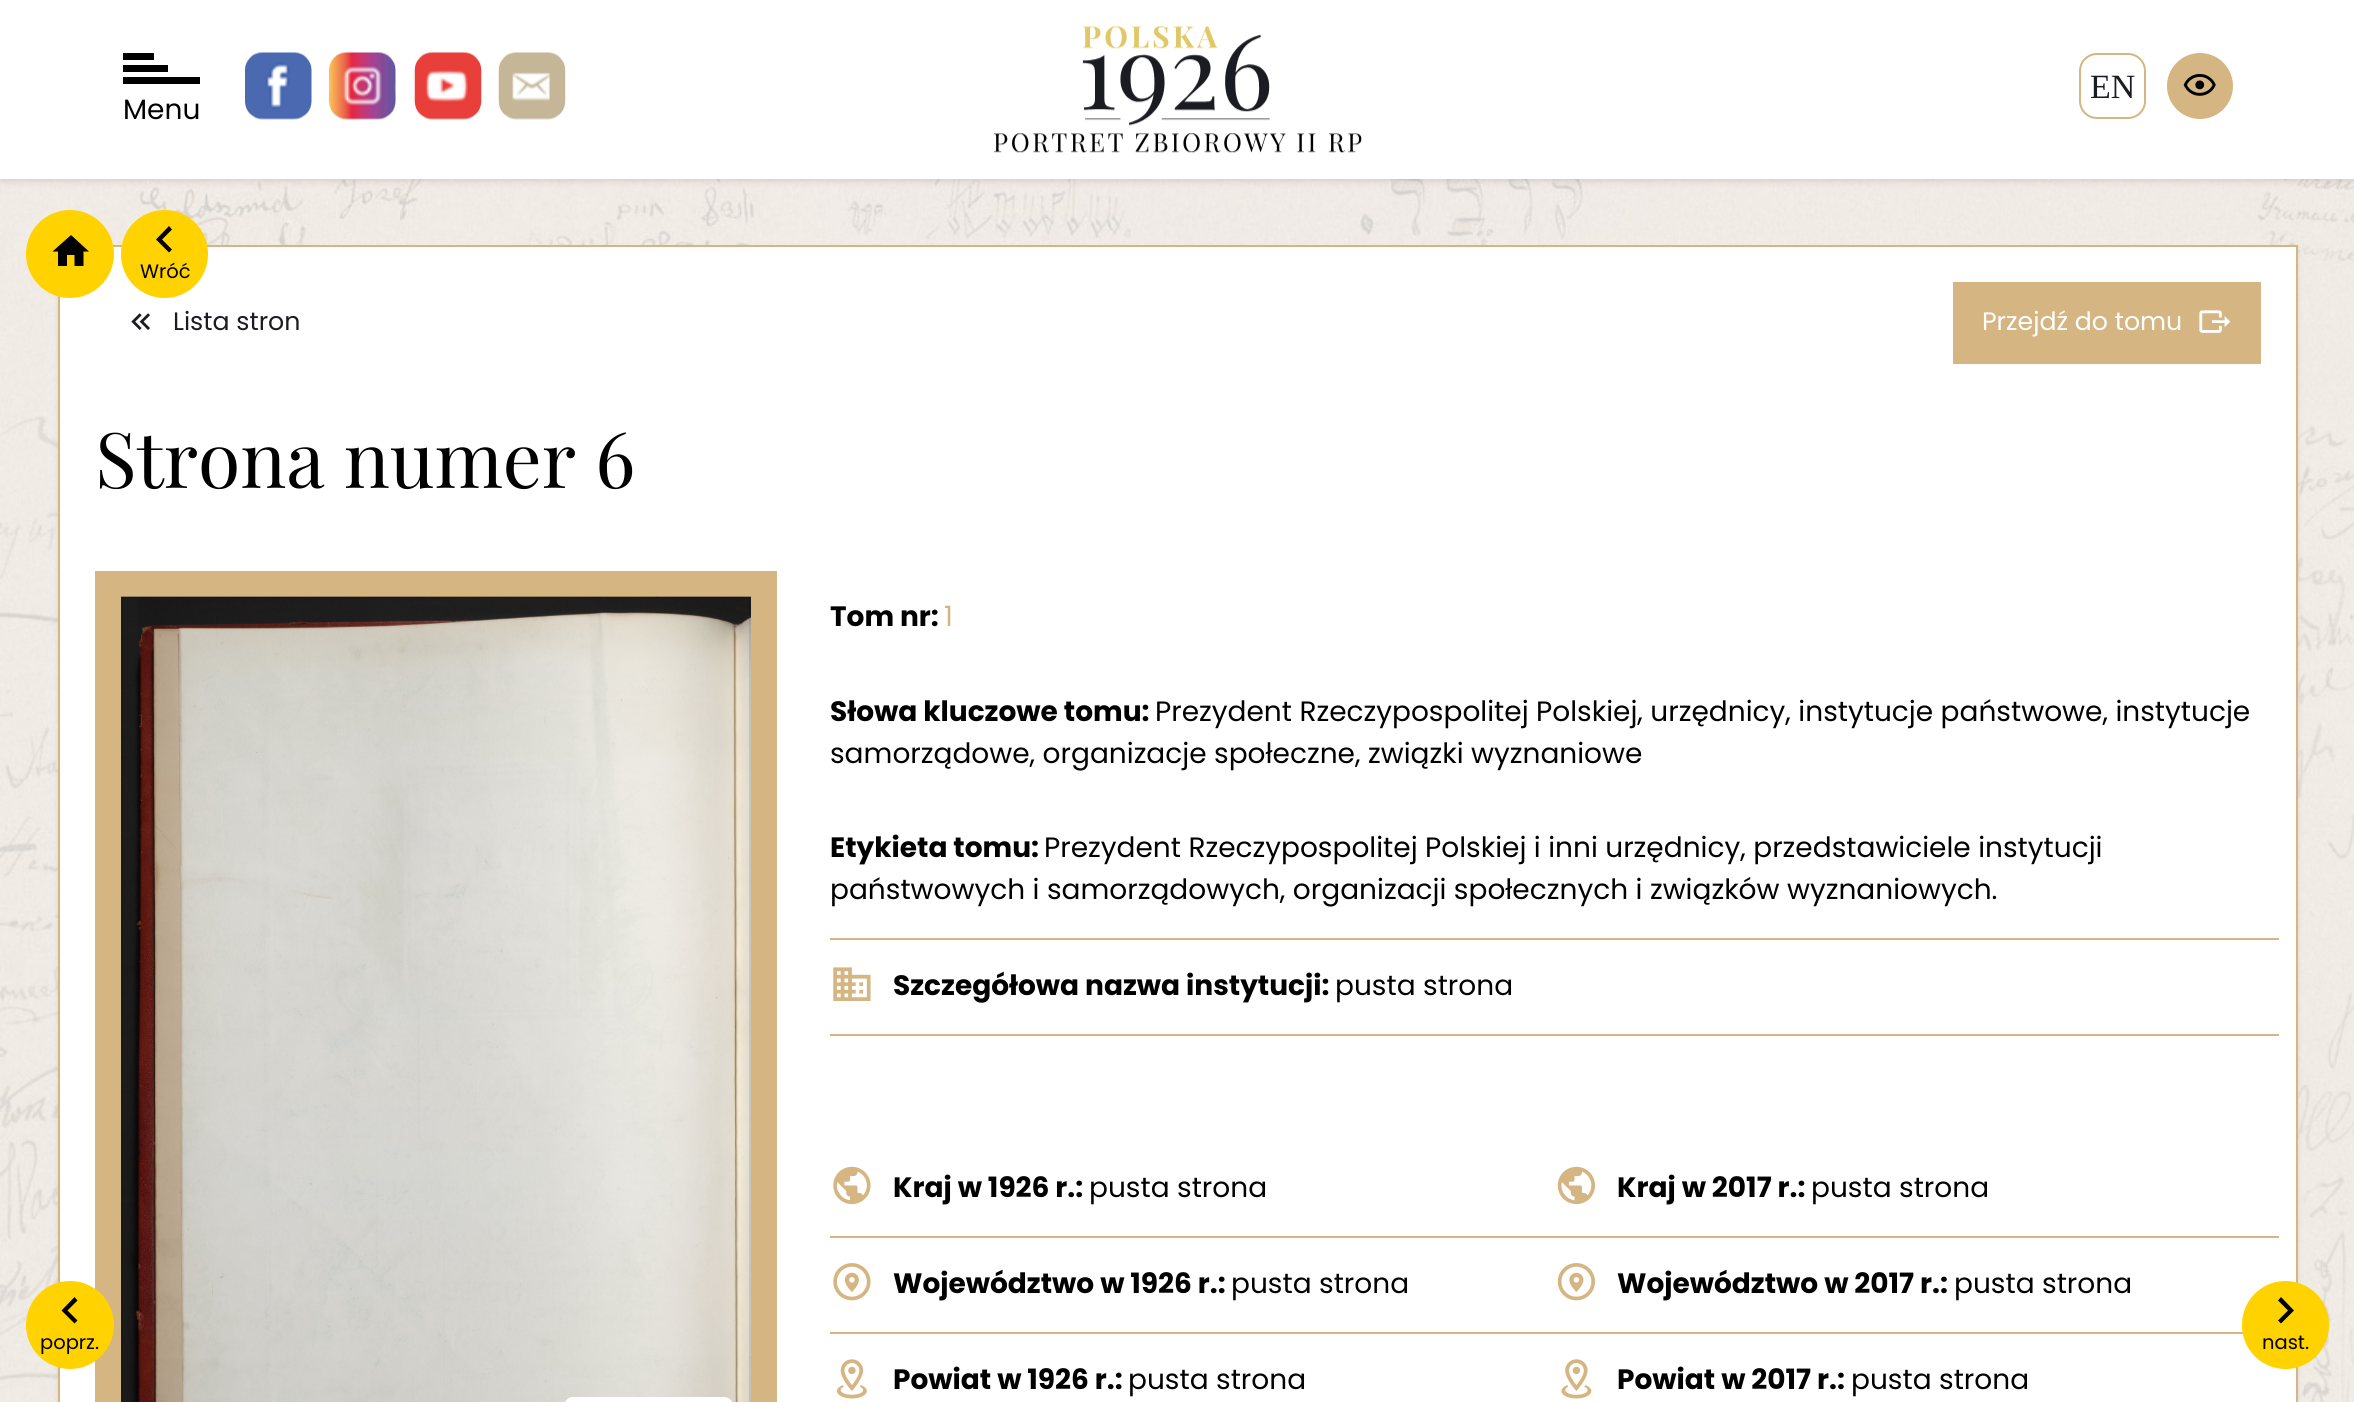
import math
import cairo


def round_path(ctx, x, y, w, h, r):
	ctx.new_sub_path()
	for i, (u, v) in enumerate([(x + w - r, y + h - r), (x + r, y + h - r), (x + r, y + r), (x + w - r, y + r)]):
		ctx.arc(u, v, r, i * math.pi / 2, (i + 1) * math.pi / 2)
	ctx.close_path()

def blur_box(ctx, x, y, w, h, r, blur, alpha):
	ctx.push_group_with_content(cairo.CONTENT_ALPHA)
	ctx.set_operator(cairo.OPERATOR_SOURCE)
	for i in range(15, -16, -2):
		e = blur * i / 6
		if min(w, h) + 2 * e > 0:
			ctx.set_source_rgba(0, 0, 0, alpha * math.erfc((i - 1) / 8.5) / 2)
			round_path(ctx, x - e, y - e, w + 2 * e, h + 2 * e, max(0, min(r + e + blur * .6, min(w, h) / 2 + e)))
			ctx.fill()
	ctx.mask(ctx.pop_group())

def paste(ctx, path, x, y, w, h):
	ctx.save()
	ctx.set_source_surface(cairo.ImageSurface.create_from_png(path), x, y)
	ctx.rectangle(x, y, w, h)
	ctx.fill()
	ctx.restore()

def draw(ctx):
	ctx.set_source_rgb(1, 1, 1)
	ctx.paint()
	paste(ctx, 'media/1.png', 0, 179, 2354, 1223)
	ctx.set_source_rgb(0, 0, 0)
	blur_box(ctx, 0, 0, 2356, 179, 0, 4.5, 0.2)
	ctx.set_source_rgb(1, 1, 1)
	ctx.rectangle(0, 0, 2354, 179)
	ctx.fill()
	paste(ctx, 'media/2.png', 245, 52, 67, 68)
	paste(ctx, 'media/3.png', 329, 52, 67, 68)
	paste(ctx, 'media/4.png', 414, 52, 68, 68)
	paste(ctx, 'media/5.png', 498, 52, 68, 68)
	paste(ctx, 'media/6.png', 994, 26, 368, 127)
	round_path(ctx, 2080, 54, 65, 64, 17)
	ctx.set_source_rgb(0.835, 0.71, 0.51)
	ctx.stroke()
	ctx.select_font_face('Liberation Serif')
	ctx.set_font_size(34)
	ctx.set_source_rgb(0.106, 0.106, 0.133)
	ctx.move_to(2090, 98)
	ctx.show_text('EN')
	ctx.set_source_rgb(0.835, 0.71, 0.51)
	ctx.new_path()
	ctx.arc(2200, 86, 33, 0, 2 * math.pi)
	ctx.fill()
	paste(ctx, 'media/7.png', 2183, 73, 33, 23)
	ctx.set_source_rgb(0, 0, 0)
	ctx.rectangle(123, 53, 31, 7)
	ctx.rectangle(123, 65, 45, 7)
	ctx.rectangle(123, 77, 77, 7)
	ctx.fill()
	ctx.select_font_face('Poppins')
	ctx.set_font_size(28)
	ctx.move_to(123, 119)
	ctx.show_text('Menu')
	ctx.set_source_rgb(0, 0, 0)
	blur_box(ctx, 58, 249, 2240, 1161, 0, 2.5, 0.1)
	ctx.set_source_rgb(1, 1, 1)
	ctx.rectangle(59, 246, 2238, 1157)
	ctx.fill_preserve()
	ctx.set_source_rgb(0.835, 0.71, 0.51)
	ctx.stroke()
	ctx.set_source_rgb(1, 0.824, 0)
	ctx.arc(70, 254, 44, 0, 2 * math.pi)
	ctx.fill()
	ctx.set_source_rgb(0, 0, 0)
	ctx.new_path()
	ctx.move_to(67, 266)
	ctx.line_to(67, 255)
	ctx.line_to(74.5, 255)
	ctx.line_to(74.5, 266)
	ctx.line_to(83.5, 266)
	ctx.line_to(83.5, 251.5)
	ctx.line_to(89, 251.5)
	ctx.line_to(71, 235)
	ctx.line_to(52.5, 251.5)
	ctx.line_to(58, 251.5)
	ctx.line_to(58, 266)
	ctx.close_path()
	ctx.fill()
	ctx.set_source_rgb(1, 0.824, 0)
	round_path(ctx, 121, 210, 87, 88, 43.5)
	ctx.fill()
	ctx.set_source_rgb(0, 0, 0)
	ctx.new_path()
	ctx.move_to(172, 249.5)
	ctx.line_to(162, 239.5)
	ctx.line_to(172, 229.5)
	ctx.line_to(169, 226)
	ctx.line_to(156, 239.5)
	ctx.line_to(169, 252.5)
	ctx.close_path()
	ctx.fill()
	ctx.set_font_size(19.5)
	ctx.move_to(140, 278)
	ctx.show_text('Wróć')
	paste(ctx, 'media/8.png', 131, 313, 19, 17)
	ctx.set_font_size(25.25)
	ctx.set_source_rgb(0.106, 0.106, 0.133)
	ctx.move_to(173, 330)
	ctx.show_text('Lista stron')
	ctx.set_source_rgb(0.835, 0.71, 0.51)
	ctx.rectangle(1953, 282, 308, 82)
	ctx.fill()
	ctx.set_source_rgb(1, 1, 1)
	ctx.move_to(1982, 330)
	ctx.show_text('Przejdź do tomu')
	paste(ctx, 'media/9.png', 2199, 310, 32, 23)
	ctx.select_font_face('Playfair Display')
	ctx.set_font_size(77)
	ctx.set_source_rgb(0, 0, 0)
	ctx.move_to(95, 488)
	ctx.show_text('Strona numer 6')
	ctx.rectangle(108, 584, 656, 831)
	ctx.set_source_rgb(0.835, 0.71, 0.51)
	ctx.set_line_width(26)
	ctx.stroke()
	ctx.set_source_rgb(1, 0.824, 0)
	ctx.arc(70, 1325, 44, 0, 2 * math.pi)
	ctx.fill()
	ctx.set_source_rgb(0, 0, 0)
	ctx.new_path()
	ctx.move_to(77.5, 1320.5)
	ctx.line_to(67.5, 1310.5)
	ctx.line_to(77.5, 1300.5)
	ctx.line_to(74.5, 1297)
	ctx.line_to(61.5, 1310.5)
	ctx.line_to(74.5, 1323.5)
	ctx.close_path()
	ctx.fill()
	ctx.select_font_face('Poppins')
	ctx.set_font_size(19.5)
	ctx.move_to(40, 1349)
	ctx.show_text('poprz.')
	paste(ctx, 'media/10.png', 121, 596, 630, 806)
	ctx.set_source_rgba(0, 0, 0, 0.1)
	ctx.rectangle(121, 597, 2, 805)
	ctx.fill()
	ctx.rectangle(123, 597, 626, 2)
	ctx.fill()
	ctx.rectangle(749, 597, 2, 805)
	ctx.fill()
	ctx.set_source_rgb(1, 1, 1)
	round_path(ctx, 564, 1397, 169, 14, 9)
	ctx.fill()
	ctx.select_font_face('Poppins', cairo.FONT_SLANT_NORMAL, cairo.FONT_WEIGHT_BOLD)
	ctx.set_font_size(28)
	ctx.set_source_rgb(0, 0, 0)
	ctx.move_to(830, 626)
	ctx.show_text('Tom nr:')
	ctx.select_font_face('Poppins')
	ctx.set_source_rgb(0.835, 0.71, 0.51)
	ctx.move_to(944, 626)
	ctx.show_text('1')
	ctx.select_font_face('Poppins', cairo.FONT_SLANT_NORMAL, cairo.FONT_WEIGHT_BOLD)
	ctx.set_source_rgb(0, 0, 0)
	ctx.move_to(830, 721)
	ctx.show_text('Słowa kluczowe tomu:')
	ctx.select_font_face('Poppins')
	ctx.move_to(1155, 721)
	ctx.show_text('Prezydent Rzeczypospolitej Polskiej, urzędnicy, instytucje państwowe, instytucje')
	ctx.move_to(830, 763)
	ctx.show_text('samorządowe, organizacje społeczne, związki wyznaniowe')
	ctx.set_source_rgb(0.835, 0.71, 0.51)
	ctx.rectangle(830, 938, 1449, 2)
	ctx.fill()
	ctx.select_font_face('Poppins', cairo.FONT_SLANT_NORMAL, cairo.FONT_WEIGHT_BOLD)
	ctx.set_source_rgb(0, 0, 0)
	ctx.move_to(830, 857)
	ctx.show_text('Etykieta tomu:')
	ctx.select_font_face('Poppins')
	ctx.move_to(1044, 857)
	ctx.show_text('Prezydent Rzeczypospolitej Polskiej i inni urzędnicy, przedstawiciele instytucji')
	ctx.move_to(830, 899)
	ctx.show_text('państwowych i samorządowych, organizacji społecznych i związków wyznaniowych.')
	ctx.set_source_rgb(0.835, 0.71, 0.51)
	ctx.rectangle(830, 1034, 1449, 2)
	ctx.fill()
	paste(ctx, 'media/11.png', 833, 967, 38, 34)
	ctx.select_font_face('Poppins', cairo.FONT_SLANT_NORMAL, cairo.FONT_WEIGHT_BOLD)
	ctx.set_source_rgb(0, 0, 0)
	ctx.move_to(893, 995)
	ctx.show_text('Szczegółowa nazwa instytucji:')
	ctx.select_font_face('Poppins')
	ctx.move_to(1335, 995)
	ctx.show_text('pusta strona')
	ctx.set_source_rgb(0.835, 0.71, 0.51)
	ctx.rectangle(830, 1236, 1449, 2)
	ctx.fill()
	paste(ctx, 'media/12.png', 833, 1166, 38, 39)
	ctx.select_font_face('Poppins', cairo.FONT_SLANT_NORMAL, cairo.FONT_WEIGHT_BOLD)
	ctx.set_source_rgb(0, 0, 0)
	ctx.move_to(893, 1197)
	ctx.show_text('Kraj w 1926 r.:')
	ctx.select_font_face('Poppins')
	ctx.move_to(1089, 1197)
	ctx.show_text('pusta strona')
	paste(ctx, 'media/13.png', 1557, 1166, 38, 39)
	ctx.select_font_face('Poppins', cairo.FONT_SLANT_NORMAL, cairo.FONT_WEIGHT_BOLD)
	ctx.move_to(1617, 1197)
	ctx.show_text('Kraj w 2017 r.:')
	ctx.select_font_face('Poppins')
	ctx.move_to(1811, 1197)
	ctx.show_text('pusta strona')
	ctx.set_source_rgb(0.835, 0.71, 0.51)
	ctx.rectangle(830, 1332, 1413, 2)
	ctx.fill()
	paste(ctx, 'media/14.png', 833, 1263, 38, 38)
	ctx.select_font_face('Poppins', cairo.FONT_SLANT_NORMAL, cairo.FONT_WEIGHT_BOLD)
	ctx.set_source_rgb(0, 0, 0)
	ctx.move_to(893, 1293)
	ctx.show_text('Województwo w 1926 r.:')
	ctx.select_font_face('Poppins')
	ctx.move_to(1231, 1293)
	ctx.show_text('pusta strona')
	paste(ctx, 'media/15.png', 1557, 1263, 38, 38)
	ctx.select_font_face('Poppins', cairo.FONT_SLANT_NORMAL, cairo.FONT_WEIGHT_BOLD)
	ctx.move_to(1617, 1293)
	ctx.show_text('Województwo w 2017 r.:')
	ctx.select_font_face('Poppins')
	ctx.move_to(1954, 1293)
	ctx.show_text('pusta strona')
	paste(ctx, 'media/16.png', 837, 1359, 30, 40)
	ctx.select_font_face('Poppins', cairo.FONT_SLANT_NORMAL, cairo.FONT_WEIGHT_BOLD)
	ctx.move_to(893, 1389)
	ctx.show_text('Powiat w 1926 r.:')
	ctx.select_font_face('Poppins')
	ctx.move_to(1128, 1389)
	ctx.show_text('pusta strona')
	paste(ctx, 'media/17.png', 1561, 1359, 31, 40)
	ctx.select_font_face('Poppins', cairo.FONT_SLANT_NORMAL, cairo.FONT_WEIGHT_BOLD)
	ctx.move_to(1617, 1389)
	ctx.show_text('Powiat w 2017 r.:')
	ctx.select_font_face('Poppins')
	ctx.move_to(1851, 1389)
	ctx.show_text('pusta strona')
	ctx.set_source_rgb(1, 0.824, 0)
	round_path(ctx, 2242, 1281, 87, 88, 43.5)
	ctx.fill()
	ctx.set_source_rgb(0, 0, 0)
	ctx.new_path()
	ctx.move_to(2278, 1320.5)
	ctx.line_to(2288, 1310.5)
	ctx.line_to(2278, 1300.5)
	ctx.line_to(2281, 1297)
	ctx.line_to(2294, 1310.5)
	ctx.line_to(2281, 1323.5)
	ctx.close_path()
	ctx.fill()
	ctx.set_font_size(19.5)
	ctx.move_to(2262, 1349)
	ctx.show_text('nast.')


surface = cairo.ImageSurface(cairo.FORMAT_RGB24, 2354, 1402)
ctx = cairo.Context(surface)
options = cairo.FontOptions()
options.set_hint_metrics(cairo.HINT_METRICS_OFF)
options.set_hint_style(cairo.HINT_STYLE_NONE)
ctx.set_font_options(options)
ctx.set_miter_limit(4)
draw(ctx)
surface.write_to_png('image.png')
